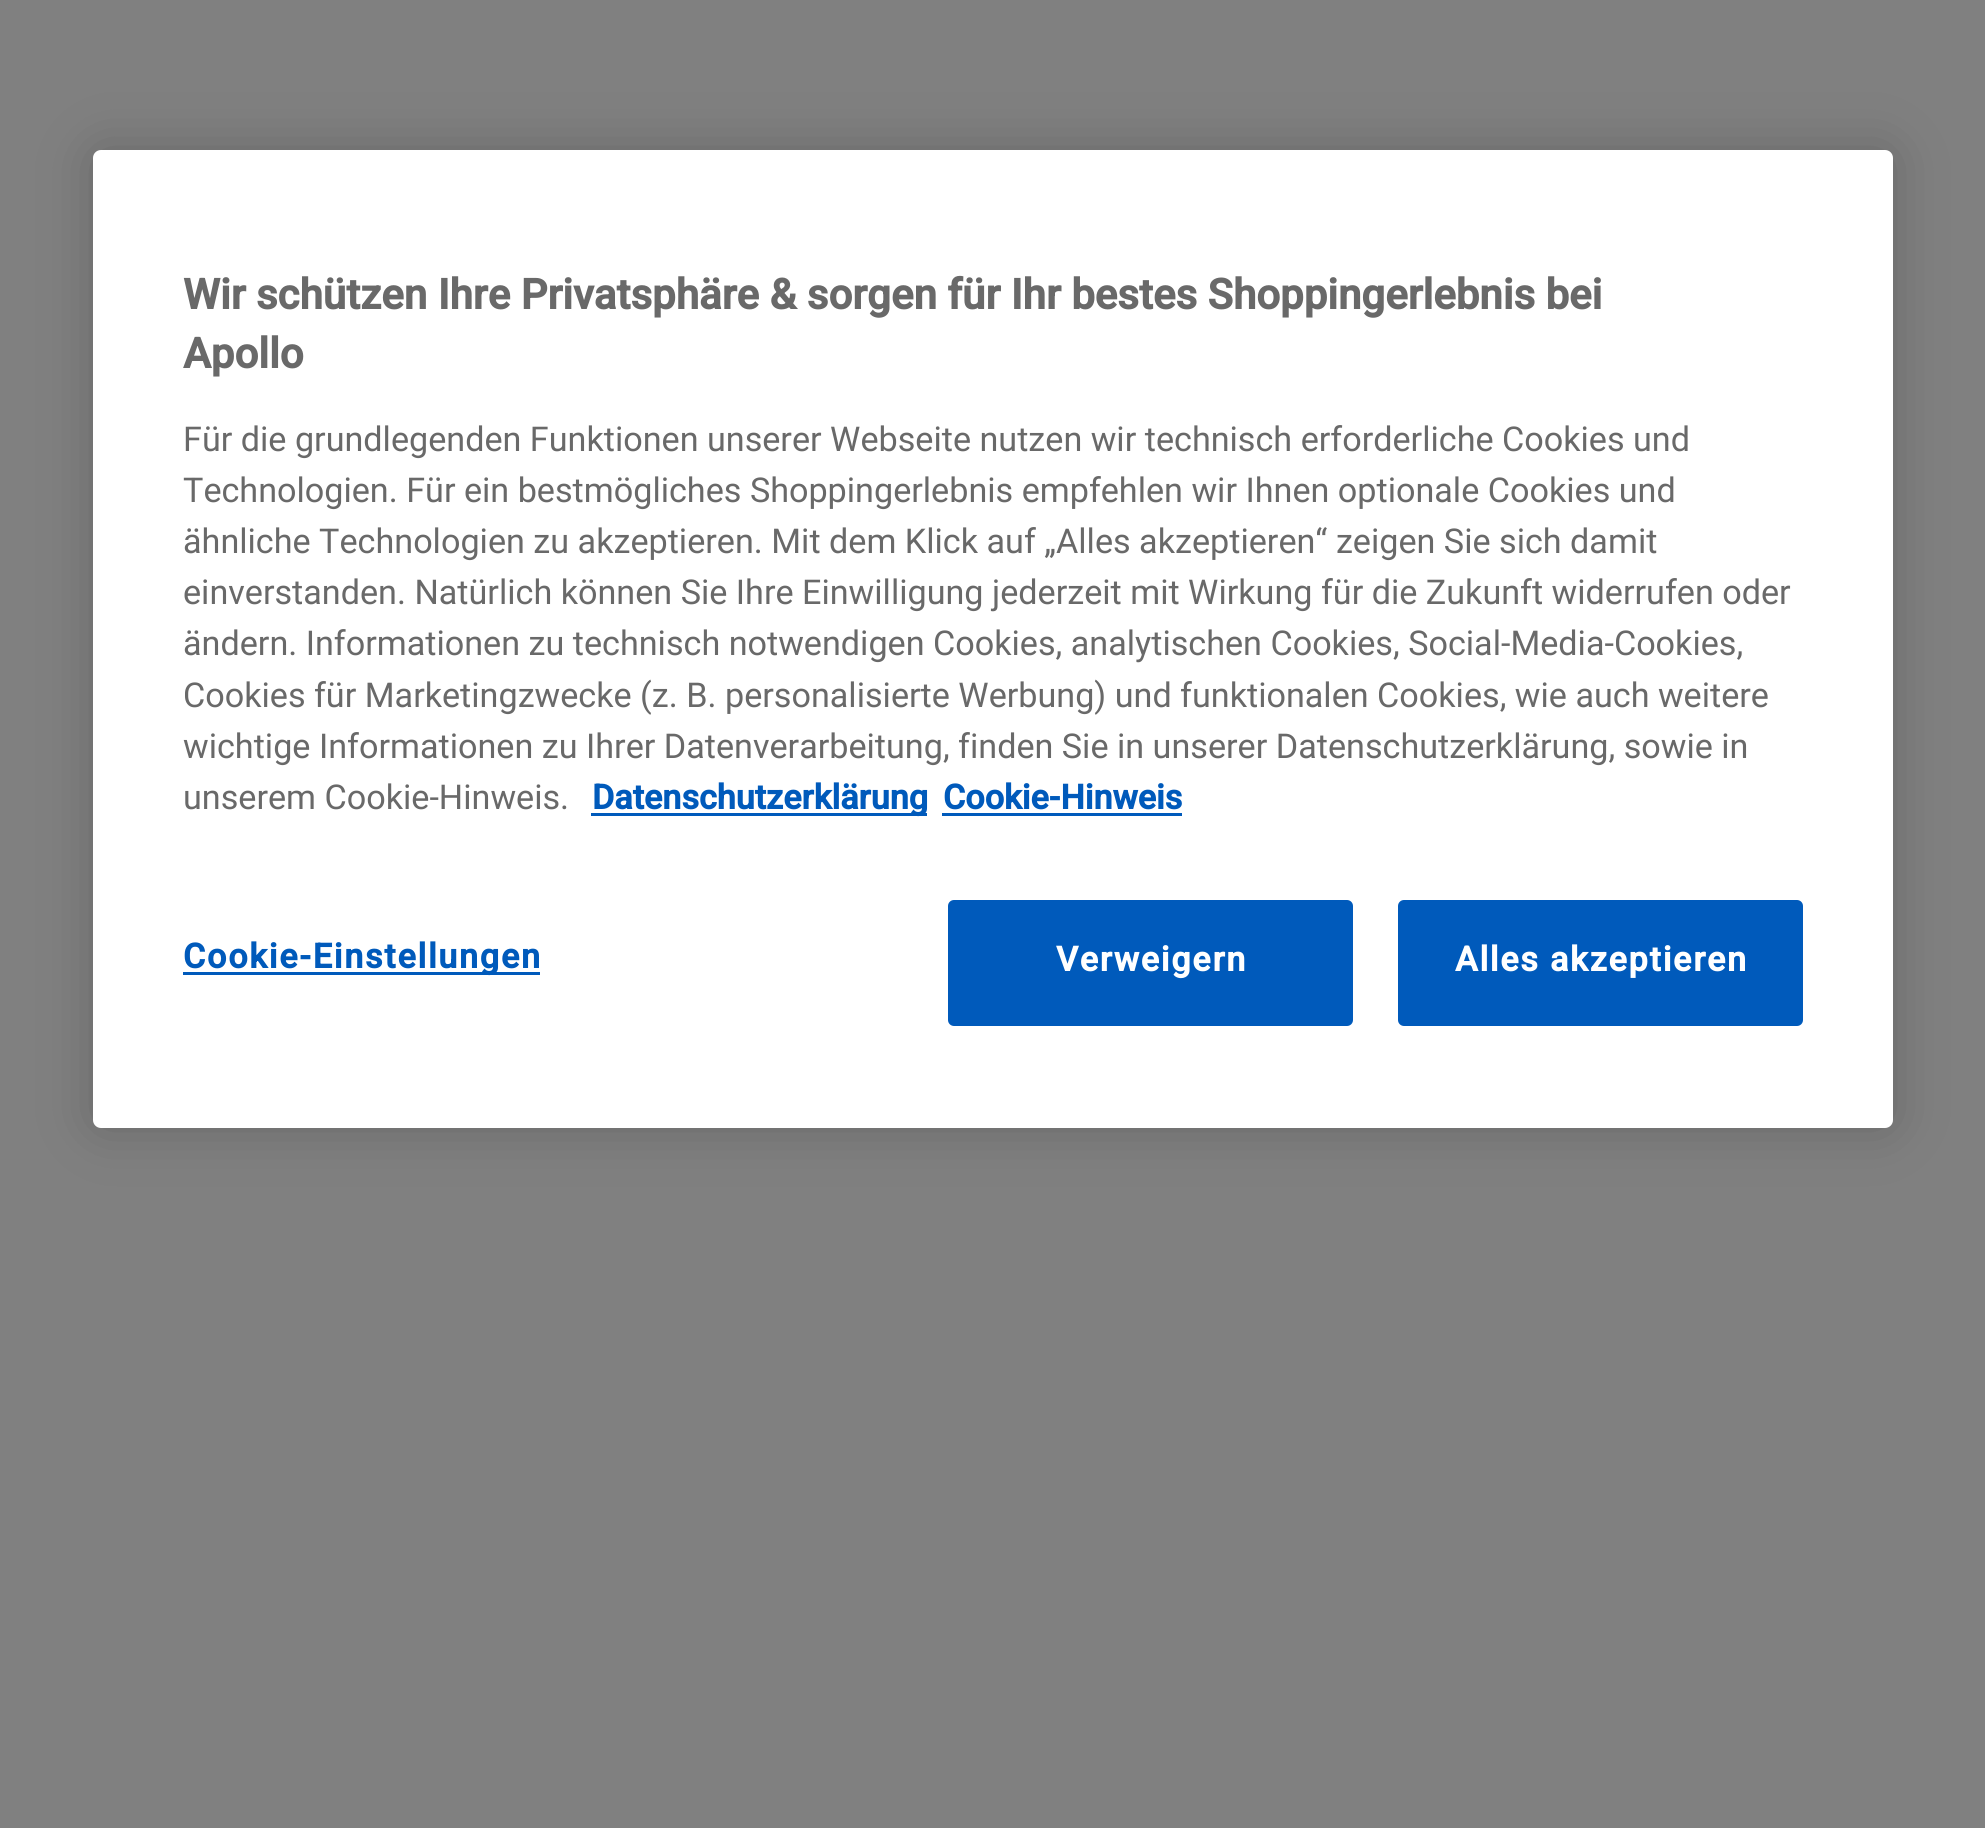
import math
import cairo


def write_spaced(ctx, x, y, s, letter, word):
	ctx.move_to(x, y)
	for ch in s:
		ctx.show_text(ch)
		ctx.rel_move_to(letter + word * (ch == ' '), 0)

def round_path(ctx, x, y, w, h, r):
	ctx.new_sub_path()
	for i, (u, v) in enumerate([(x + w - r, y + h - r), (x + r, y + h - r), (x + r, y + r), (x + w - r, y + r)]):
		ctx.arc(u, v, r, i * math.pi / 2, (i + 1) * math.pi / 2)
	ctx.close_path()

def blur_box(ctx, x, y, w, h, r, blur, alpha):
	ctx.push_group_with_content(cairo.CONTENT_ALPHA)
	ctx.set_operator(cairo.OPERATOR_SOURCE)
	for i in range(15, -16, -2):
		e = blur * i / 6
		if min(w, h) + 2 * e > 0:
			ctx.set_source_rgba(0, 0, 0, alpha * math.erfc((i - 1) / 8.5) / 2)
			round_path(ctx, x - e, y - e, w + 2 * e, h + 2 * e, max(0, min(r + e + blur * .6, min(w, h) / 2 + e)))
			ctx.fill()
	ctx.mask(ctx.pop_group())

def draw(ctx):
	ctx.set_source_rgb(0.502, 0.502, 0.502)
	ctx.paint()
	ctx.set_source_rgb(0, 0, 0)
	blur_box(ctx, 93, 150, 1800, 978, 8, 27, 0.2)
	ctx.set_source_rgb(1, 1, 1)
	round_path(ctx, 93, 150, 1800, 978, 8)
	ctx.fill()
	ctx.select_font_face('Roboto', cairo.FONT_SLANT_NORMAL, cairo.FONT_WEIGHT_BOLD)
	ctx.set_font_size(42)
	ctx.set_source_rgb(0.412, 0.412, 0.412)
	ctx.move_to(183, 309)
	ctx.show_text('Wir schützen Ihre Privatsphäre & sorgen für Ihr bestes Shoppingerlebnis bei')
	ctx.move_to(183, 368)
	ctx.show_text('Apollo')
	ctx.select_font_face('Roboto')
	ctx.set_font_size(34.15)
	for x, y, s in [
		(183, 451, 'Für die grundlegenden Funktionen unserer Webseite nutzen wir technisch erforderliche Cookies und'),
		(183, 502, 'Technologien. Für ein bestmögliches Shoppingerlebnis empfehlen wir Ihnen optionale Cookies und'),
		(183, 553, 'ähnliche Technologien zu akzeptieren. Mit dem Klick auf „Alles akzeptieren“ zeigen Sie sich damit'),
		(183, 604, 'einverstanden. Natürlich können Sie Ihre Einwilligung jederzeit mit Wirkung für die Zukunft widerrufen oder'),
		(183, 655, 'ändern. Informationen zu technisch notwendigen Cookies, analytischen Cookies, Social-Media-Cookies,'),
		(183, 707, 'Cookies für Marketingzwecke (z. B. personalisierte Werbung) und funktionalen Cookies, wie auch weitere'),
		(183, 758, 'wichtige Informationen zu Ihrer Datenverarbeitung, finden Sie in unserer Datenschutzerklärung, sowie in'),
		(183, 809, 'unserem Cookie-Hinweis.'),
	]:
		ctx.move_to(x, y)
		ctx.show_text(s)
	ctx.set_source_rgb(0, 0.353, 0.733)
	ctx.rectangle(591, 813, 336, 3)
	ctx.fill()
	ctx.select_font_face('Roboto', cairo.FONT_SLANT_NORMAL, cairo.FONT_WEIGHT_BOLD)
	ctx.move_to(592, 809)
	ctx.show_text('Datenschutzerklärung')
	ctx.move_to(943, 809)
	ctx.show_text('Cookie-Hinweis')
	ctx.rectangle(942, 813, 240, 3)
	ctx.fill()
	ctx.rectangle(183, 972, 357, 3)
	ctx.fill()
	write_spaced(ctx, 183, 968, 'Cookie-Einstellungen', 1.75, 0)
	round_path(ctx, 949.5, 901.5, 402, 123, 4.5)
	ctx.fill_preserve()
	ctx.set_line_width(3)
	ctx.stroke()
	ctx.set_source_rgb(1, 1, 1)
	write_spaced(ctx, 1056, 971, 'Verweigern', 1.75, 0)
	ctx.set_source_rgb(0, 0.353, 0.733)
	round_path(ctx, 1399.5, 901.5, 402, 123, 4.5)
	ctx.fill_preserve()
	ctx.stroke()
	ctx.set_source_rgb(1, 1, 1)
	write_spaced(ctx, 1455, 971, 'Alles akzeptieren', 1.75, 0)


surface = cairo.ImageSurface(cairo.FORMAT_RGB24, 1985, 1828)
ctx = cairo.Context(surface)
options = cairo.FontOptions()
options.set_hint_metrics(cairo.HINT_METRICS_OFF)
options.set_hint_style(cairo.HINT_STYLE_NONE)
ctx.set_font_options(options)
ctx.set_miter_limit(4)
draw(ctx)
surface.write_to_png('image.png')
